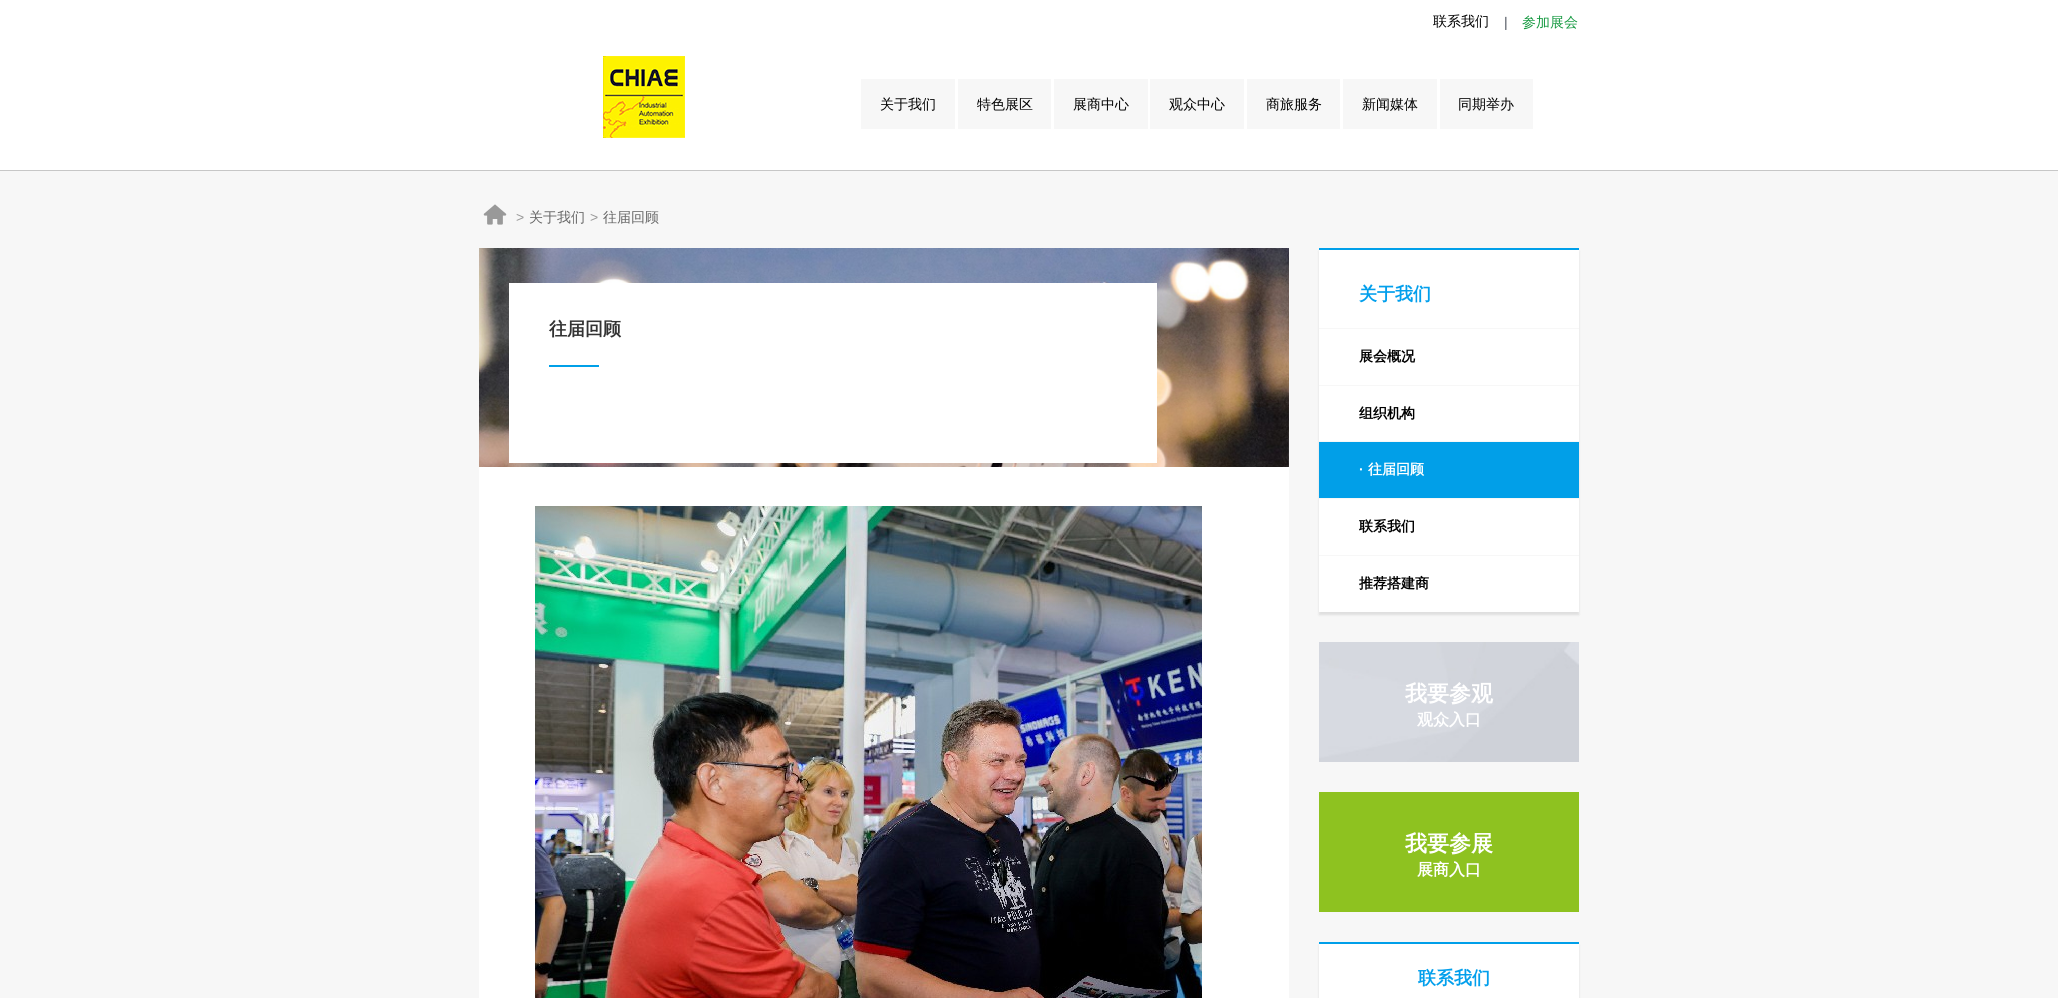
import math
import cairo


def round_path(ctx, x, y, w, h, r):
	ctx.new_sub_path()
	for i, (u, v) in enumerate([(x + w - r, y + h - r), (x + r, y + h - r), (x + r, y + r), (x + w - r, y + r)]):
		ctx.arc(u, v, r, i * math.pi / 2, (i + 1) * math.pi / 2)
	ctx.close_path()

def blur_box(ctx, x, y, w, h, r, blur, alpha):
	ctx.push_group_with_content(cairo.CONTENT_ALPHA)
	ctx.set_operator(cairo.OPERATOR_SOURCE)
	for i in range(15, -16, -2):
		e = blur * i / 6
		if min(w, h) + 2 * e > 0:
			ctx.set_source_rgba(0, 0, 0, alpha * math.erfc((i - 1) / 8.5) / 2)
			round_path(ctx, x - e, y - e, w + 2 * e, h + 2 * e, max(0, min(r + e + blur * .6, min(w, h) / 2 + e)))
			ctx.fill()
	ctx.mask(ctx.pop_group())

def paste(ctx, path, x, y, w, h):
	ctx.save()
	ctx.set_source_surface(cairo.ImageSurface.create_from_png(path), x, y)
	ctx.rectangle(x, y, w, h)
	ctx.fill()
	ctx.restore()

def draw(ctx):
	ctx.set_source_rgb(1, 1, 1)
	ctx.paint()
	ctx.select_font_face('WenQuanYi Zen Hei Medium')
	ctx.set_font_size(14)
	ctx.set_source_rgb(0, 0, 0)
	ctx.move_to(1433, 26)
	ctx.show_text('联系我们')
	ctx.select_font_face('Liberation Sans')
	ctx.set_source_rgb(0.314, 0.333, 0.373)
	ctx.move_to(1504, 27)
	ctx.show_text('|')
	ctx.select_font_face('WenQuanYi Zen Hei Medium')
	ctx.set_source_rgb(0.09, 0.604, 0.259)
	ctx.move_to(1522, 27)
	ctx.show_text('参加展会')
	paste(ctx, 'media/1.png', 603, 56, 82, 82)
	ctx.set_source_rgb(0.965, 0.965, 0.965)
	ctx.rectangle(861, 79, 94, 50)
	ctx.fill()
	ctx.set_source_rgb(0, 0, 0)
	ctx.move_to(880, 109)
	ctx.show_text('关于我们')
	ctx.set_source_rgb(0.965, 0.965, 0.965)
	ctx.rectangle(958, 79, 93, 50)
	ctx.fill()
	ctx.set_source_rgb(0, 0, 0)
	ctx.move_to(977, 109)
	ctx.show_text('特色展区')
	ctx.set_source_rgb(0.965, 0.965, 0.965)
	ctx.rectangle(1054, 79, 94, 50)
	ctx.fill()
	ctx.set_source_rgb(0, 0, 0)
	ctx.move_to(1073, 109)
	ctx.show_text('展商中心')
	ctx.set_source_rgb(0.965, 0.965, 0.965)
	ctx.rectangle(1150, 79, 94, 50)
	ctx.fill()
	ctx.set_source_rgb(0, 0, 0)
	ctx.move_to(1169, 109)
	ctx.show_text('观众中心')
	ctx.set_source_rgb(0.965, 0.965, 0.965)
	ctx.rectangle(1247, 79, 93, 50)
	ctx.fill()
	ctx.set_source_rgb(0, 0, 0)
	ctx.move_to(1266, 109)
	ctx.show_text('商旅服务')
	ctx.set_source_rgb(0.965, 0.965, 0.965)
	ctx.rectangle(1343, 79, 94, 50)
	ctx.fill()
	ctx.set_source_rgb(0, 0, 0)
	ctx.move_to(1362, 109)
	ctx.show_text('新闻媒体')
	ctx.set_source_rgb(0.965, 0.965, 0.965)
	ctx.rectangle(1440, 79, 93, 50)
	ctx.fill()
	ctx.set_source_rgb(0, 0, 0)
	ctx.move_to(1458, 109)
	ctx.show_text('同期举办')
	ctx.set_source_rgb(0.965, 0.965, 0.965)
	ctx.rectangle(0, 171, 2058, 827)
	ctx.fill()
	ctx.set_source_rgb(0.78, 0.78, 0.78)
	ctx.rectangle(0, 170, 2058, 1)
	ctx.fill()
	paste(ctx, 'media/2.png', 483, 204, 24, 21)
	ctx.select_font_face('Liberation Sans')
	ctx.set_source_rgb(0.6, 0.6, 0.6)
	ctx.move_to(516, 222)
	ctx.show_text('>')
	ctx.select_font_face('WenQuanYi Zen Hei Medium')
	ctx.set_source_rgb(0.4, 0.4, 0.4)
	ctx.move_to(529, 222)
	ctx.show_text('关于我们')
	ctx.select_font_face('Liberation Sans')
	ctx.set_source_rgb(0.6, 0.6, 0.6)
	ctx.move_to(590, 222)
	ctx.show_text('>')
	ctx.select_font_face('WenQuanYi Zen Hei Medium')
	ctx.set_source_rgb(0.4, 0.4, 0.4)
	ctx.move_to(603, 222)
	ctx.show_text('往届回顾')
	paste(ctx, 'media/3.png', 479, 248, 810, 219)
	ctx.set_source_rgb(1, 1, 1)
	ctx.rectangle(509, 283, 648, 180)
	ctx.fill()
	ctx.select_font_face('WenQuanYi Zen Hei', cairo.FONT_SLANT_NORMAL, cairo.FONT_WEIGHT_BOLD)
	ctx.set_font_size(18)
	ctx.set_source_rgb(0.2, 0.2, 0.2)
	ctx.move_to(549, 335)
	ctx.show_text('往届回顾')
	ctx.set_source_rgb(0, 0.627, 0.91)
	ctx.rectangle(549, 365, 50, 2)
	ctx.fill()
	ctx.set_source_rgb(1, 1, 1)
	ctx.rectangle(479, 467, 810, 531)
	ctx.fill()
	paste(ctx, 'media/4.png', 535, 506, 667, 492)
	ctx.set_source_rgb(0, 0, 0)
	blur_box(ctx, 1319, 251, 260, 364, 0, 1, 0.1)
	ctx.set_source_rgb(1, 1, 1)
	ctx.rectangle(1319, 250, 260, 362)
	ctx.fill()
	ctx.set_source_rgb(0, 0.624, 0.914)
	ctx.rectangle(1319, 248, 260, 2)
	ctx.fill()
	ctx.set_source_rgb(0.008, 0.624, 0.925)
	ctx.move_to(1359, 300)
	ctx.show_text('关于我们')
	ctx.set_source_rgb(0.965, 0.965, 0.965)
	ctx.rectangle(1319, 328, 260, 1)
	ctx.fill()
	ctx.set_font_size(14)
	ctx.set_source_rgb(0, 0, 0)
	ctx.move_to(1359, 361)
	ctx.show_text('展会概况')
	ctx.set_source_rgb(0.965, 0.965, 0.965)
	ctx.rectangle(1319, 385, 260, 1)
	ctx.fill()
	ctx.set_source_rgb(0, 0, 0)
	ctx.move_to(1359, 418)
	ctx.show_text('组织机构')
	ctx.set_source_rgb(0.004, 0.624, 0.91)
	ctx.rectangle(1319, 442, 260, 56)
	ctx.fill()
	ctx.set_source_rgb(0.965, 0.965, 0.965)
	ctx.rectangle(1319, 441, 260, 1)
	ctx.fill()
	ctx.select_font_face('Liberation Sans', cairo.FONT_SLANT_NORMAL, cairo.FONT_WEIGHT_BOLD)
	ctx.set_source_rgb(1, 1, 1)
	ctx.move_to(1359, 474)
	ctx.show_text('·')
	ctx.select_font_face('WenQuanYi Zen Hei', cairo.FONT_SLANT_NORMAL, cairo.FONT_WEIGHT_BOLD)
	ctx.move_to(1368, 474)
	ctx.show_text('往届回顾')
	ctx.set_source_rgb(0.965, 0.965, 0.965)
	ctx.rectangle(1319, 498, 260, 1)
	ctx.fill()
	ctx.set_source_rgb(0, 0, 0)
	ctx.move_to(1359, 531)
	ctx.show_text('联系我们')
	ctx.set_source_rgb(0.965, 0.965, 0.965)
	ctx.rectangle(1319, 555, 260, 1)
	ctx.fill()
	ctx.set_source_rgb(0, 0, 0)
	ctx.move_to(1359, 588)
	ctx.show_text('推荐搭建商')
	paste(ctx, 'media/5.png', 1319, 642, 260, 120)
	ctx.set_font_size(22)
	ctx.set_source_rgb(1, 1, 1)
	ctx.move_to(1405, 701)
	ctx.show_text('我要参观')
	ctx.set_font_size(16)
	ctx.move_to(1417, 725)
	ctx.show_text('观众入口')
	ctx.set_source_rgb(0.557, 0.761, 0.125)
	ctx.rectangle(1319, 792, 260, 120)
	ctx.fill()
	ctx.set_font_size(22)
	ctx.set_source_rgb(1, 1, 1)
	ctx.move_to(1405, 851)
	ctx.show_text('我要参展')
	ctx.set_font_size(16)
	ctx.move_to(1417, 875)
	ctx.show_text('展商入口')
	ctx.set_source_rgb(0, 0, 0)
	blur_box(ctx, 1319, 945, 260, 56, 0, 1, 0.1)
	ctx.set_source_rgb(1, 1, 1)
	ctx.rectangle(1319, 944, 260, 54)
	ctx.fill()
	ctx.set_source_rgb(0, 0.624, 0.914)
	ctx.rectangle(1319, 942, 260, 2)
	ctx.fill()
	ctx.set_font_size(18)
	ctx.set_source_rgb(0.008, 0.624, 0.925)
	ctx.move_to(1418, 984)
	ctx.show_text('联系我们')


surface = cairo.ImageSurface(cairo.FORMAT_RGB24, 2058, 998)
ctx = cairo.Context(surface)
options = cairo.FontOptions()
options.set_hint_metrics(cairo.HINT_METRICS_OFF)
options.set_hint_style(cairo.HINT_STYLE_NONE)
ctx.set_font_options(options)
ctx.set_miter_limit(4)
draw(ctx)
surface.write_to_png('image.png')
